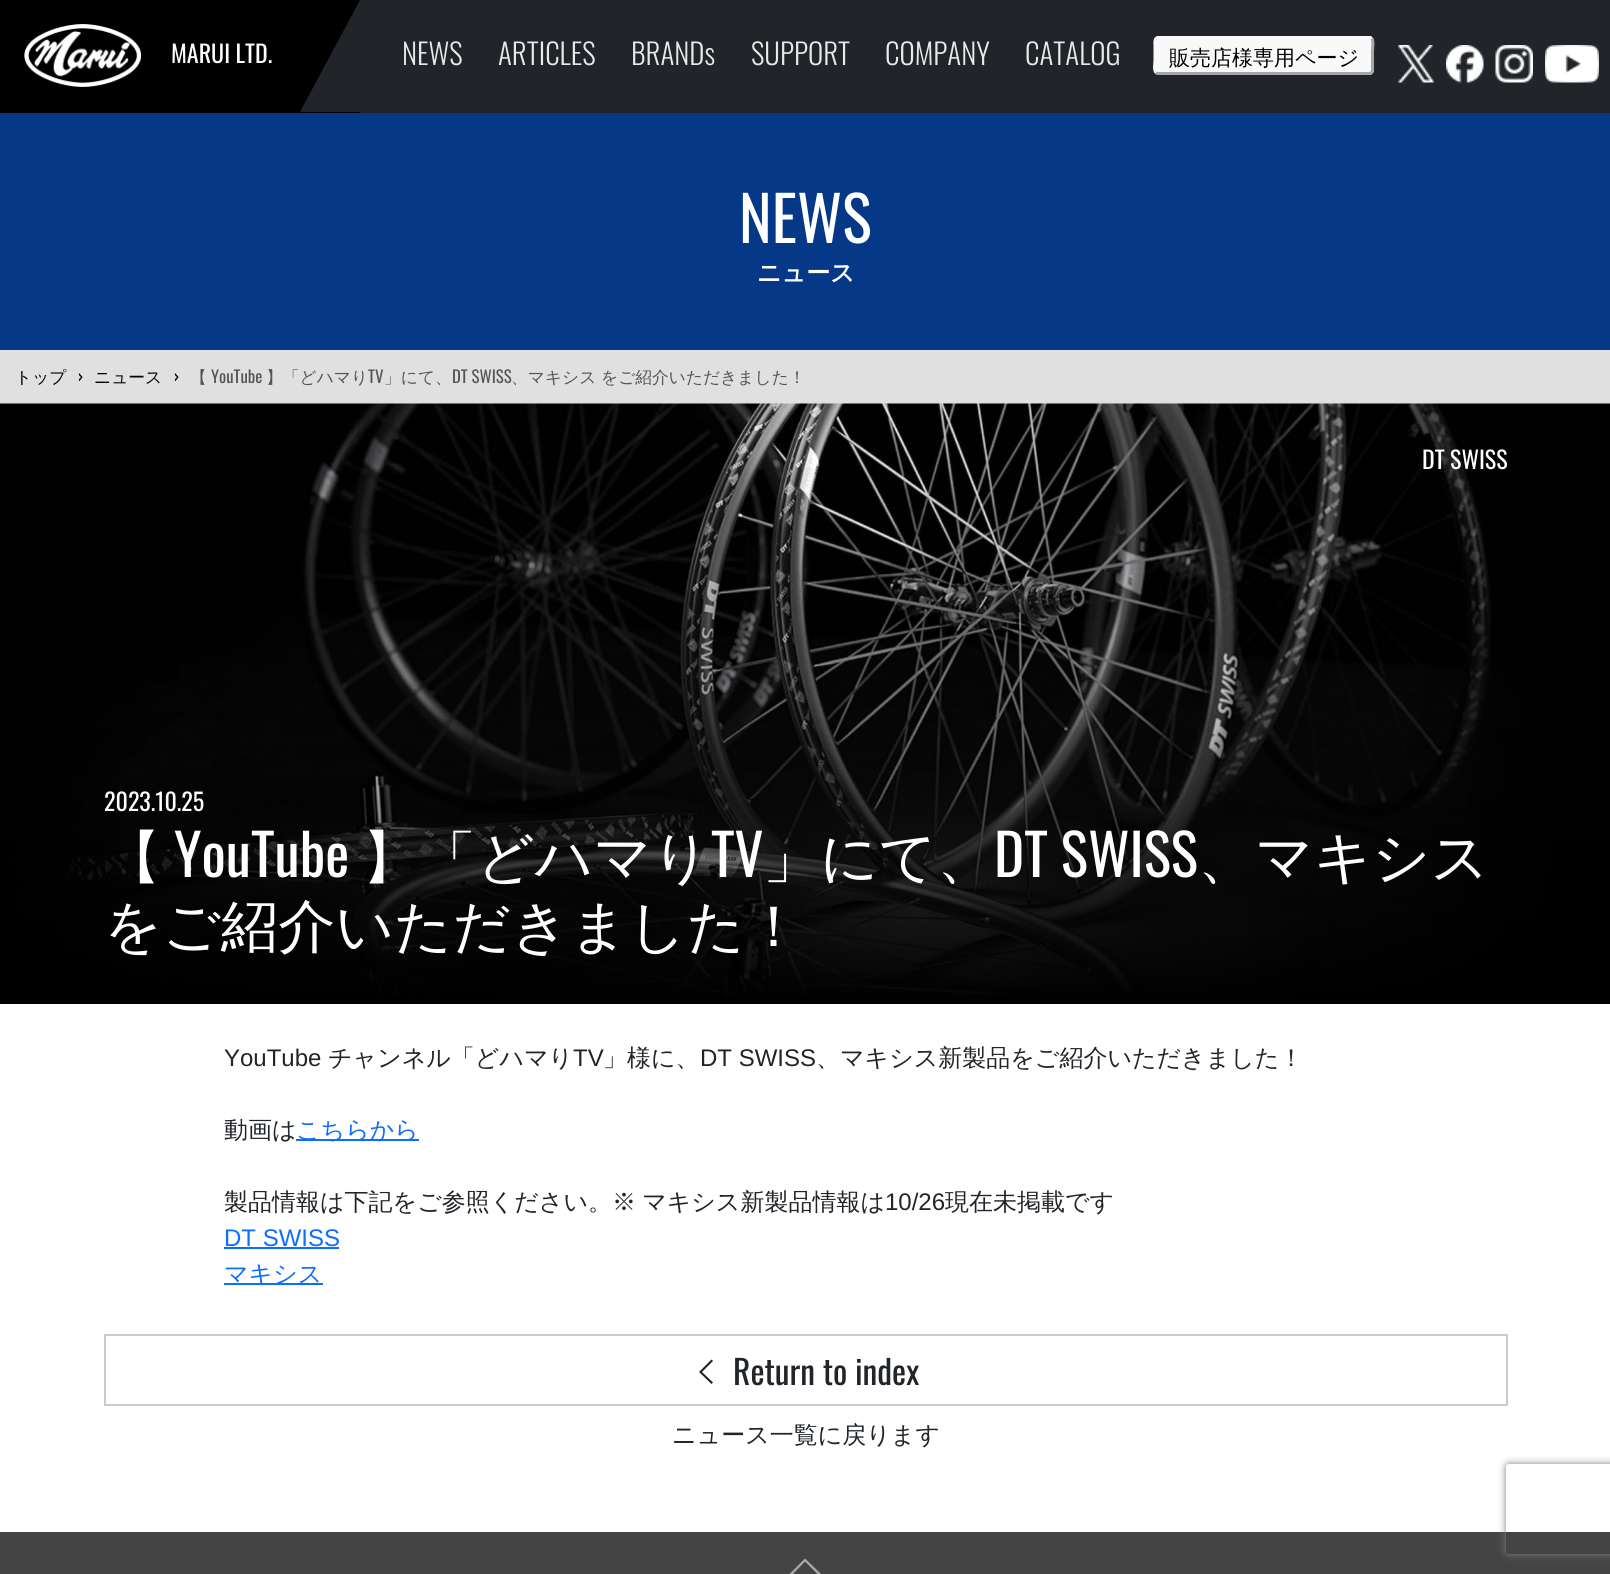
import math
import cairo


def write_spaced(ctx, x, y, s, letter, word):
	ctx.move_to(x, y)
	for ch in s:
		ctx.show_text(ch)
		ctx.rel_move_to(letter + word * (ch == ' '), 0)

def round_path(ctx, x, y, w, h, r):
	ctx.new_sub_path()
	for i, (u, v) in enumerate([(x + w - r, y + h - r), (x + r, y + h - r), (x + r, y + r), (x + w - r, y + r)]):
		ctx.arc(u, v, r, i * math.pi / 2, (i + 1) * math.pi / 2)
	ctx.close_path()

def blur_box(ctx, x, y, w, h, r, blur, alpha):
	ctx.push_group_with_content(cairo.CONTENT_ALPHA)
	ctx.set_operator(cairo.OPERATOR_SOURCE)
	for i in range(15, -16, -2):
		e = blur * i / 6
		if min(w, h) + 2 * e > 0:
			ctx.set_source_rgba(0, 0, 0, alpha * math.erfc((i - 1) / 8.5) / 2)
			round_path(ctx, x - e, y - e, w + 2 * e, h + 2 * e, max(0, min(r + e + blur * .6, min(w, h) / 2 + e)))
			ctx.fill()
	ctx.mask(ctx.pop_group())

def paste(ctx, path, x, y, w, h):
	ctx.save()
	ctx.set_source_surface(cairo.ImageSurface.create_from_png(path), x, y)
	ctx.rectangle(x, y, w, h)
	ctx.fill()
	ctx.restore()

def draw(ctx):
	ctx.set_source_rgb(1, 1, 1)
	ctx.paint()
	ctx.set_source_rgb(0.129, 0.145, 0.161)
	ctx.rectangle(360, 0, 1250, 113)
	ctx.fill()
	ctx.set_source_rgb(0, 0, 0)
	ctx.rectangle(0, 0, 360, 113)
	ctx.fill()
	paste(ctx, 'media/1.png', 24, 24, 117, 63)
	ctx.select_font_face('Oswald')
	ctx.set_font_size(24)
	ctx.set_source_rgb(1, 1, 1)
	ctx.move_to(171, 63)
	ctx.show_text('MARUI LTD.')
	ctx.set_source_rgb(0.129, 0.145, 0.161)
	ctx.new_path()
	ctx.move_to(360, 0)
	ctx.line_to(360, 112)
	ctx.line_to(300, 112)
	ctx.close_path()
	ctx.fill()
	ctx.select_font_face('Oswald Light')
	ctx.set_font_size(29)
	ctx.set_source_rgb(0.914, 0.914, 0.918)
	for x, y, s in [
		(402, 65, 'NEWS'),
		(498, 65, 'ARTICLES'),
		(631, 65, 'BRANDs'),
		(751, 65, 'SUPPORT'),
		(885, 65, 'COMPANY'),
		(1025, 65, 'CATALOG'),
	]:
		ctx.move_to(x, y)
		ctx.show_text(s)
	ctx.set_source_rgb(0.973, 0.976, 0.98)
	round_path(ctx, 1154, 36, 220, 39, 5)
	ctx.fill()
	ctx.new_path()
	ctx.move_to(1371.5, 38.5)
	ctx.curve_to(1374, 40.5, 1372.5, 48, 1372.5, 50.5)
	ctx.line_to(1372.5, 65.5)
	ctx.curve_to(1372.5, 68, 1373.5, 73.5, 1369, 73.5)
	ctx.line_to(1157.5, 73.5)
	ctx.line_to(1156, 72.5)
	ctx.set_source_rgb(0.647, 0.651, 0.655)
	ctx.set_line_width(3)
	ctx.stroke()
	ctx.new_path()
	ctx.move_to(1156, 72.5)
	ctx.curve_to(1153.5, 70.5, 1155, 63, 1155, 60.5)
	ctx.line_to(1155, 45.5)
	ctx.curve_to(1155, 43, 1154, 37.5, 1158.5, 37.5)
	ctx.line_to(1370, 37.5)
	ctx.line_to(1371.5, 38.5)
	ctx.set_source_rgb(0.973, 0.976, 0.98)
	ctx.stroke()
	ctx.select_font_face('WenQuanYi Zen Hei Medium')
	ctx.set_font_size(21)
	ctx.set_source_rgb(0, 0, 0)
	ctx.move_to(1169, 65)
	ctx.show_text('販売店様専用ページ')
	paste(ctx, 'media/2.png', 1398, 45, 36, 38)
	paste(ctx, 'media/3.png', 1446, 45, 38, 38)
	paste(ctx, 'media/4.png', 1495, 45, 38, 38)
	paste(ctx, 'media/5.png', 1545, 45, 54, 38)
	ctx.set_source_rgb(0.02, 0.22, 0.525)
	ctx.rectangle(0, 113, 1610, 237)
	ctx.fill()
	ctx.select_font_face('Oswald')
	ctx.set_font_size(62)
	ctx.set_source_rgb(1, 1, 1)
	ctx.move_to(739, 243)
	ctx.show_text('NEWS')
	ctx.select_font_face('WenQuanYi Zen Hei', cairo.FONT_SLANT_NORMAL, cairo.FONT_WEIGHT_BOLD)
	ctx.set_font_size(24)
	ctx.move_to(757, 281)
	ctx.show_text('ニュース')
	ctx.set_source_rgb(0.878, 0.878, 0.878)
	ctx.rectangle(0, 350, 1610, 54)
	ctx.fill()
	ctx.select_font_face('WenQuanYi Zen Hei Medium')
	ctx.set_font_size(16.75)
	ctx.set_source_rgb(0, 0, 0)
	ctx.move_to(15, 383)
	ctx.show_text('トップ')
	ctx.select_font_face('Oswald')
	ctx.move_to(78, 383)
	ctx.show_text('›')
	ctx.select_font_face('WenQuanYi Zen Hei Medium')
	ctx.move_to(94, 383)
	ctx.show_text('ニュース')
	ctx.select_font_face('Oswald')
	ctx.move_to(174, 383)
	ctx.show_text('›')
	ctx.select_font_face('WenQuanYi Zen Hei Medium')
	ctx.set_source_rgb(0.333, 0.333, 0.333)
	ctx.move_to(190, 383)
	ctx.show_text('【')
	ctx.select_font_face('Oswald')
	ctx.move_to(211, 383)
	ctx.show_text('YouTube')
	ctx.select_font_face('WenQuanYi Zen Hei Medium')
	ctx.move_to(266, 383)
	ctx.show_text('】「どハマり')
	ctx.select_font_face('Oswald')
	ctx.move_to(368, 383)
	ctx.show_text('TV')
	ctx.select_font_face('WenQuanYi Zen Hei Medium')
	ctx.move_to(384, 383)
	ctx.show_text('」にて、')
	ctx.select_font_face('Oswald')
	ctx.move_to(452, 383)
	ctx.show_text('DT SWISS')
	ctx.select_font_face('WenQuanYi Zen Hei Medium')
	ctx.move_to(511, 383)
	ctx.show_text('、マキシス')
	ctx.move_to(601, 383)
	ctx.show_text('をご紹介いただきました！')
	paste(ctx, 'media/6.png', 0, 403, 1610, 599)
	gradient = cairo.LinearGradient(806, 403, 806, 1004)
	gradient.add_color_stop_rgba(0, 0, 0, 0, 0)
	gradient.add_color_stop_rgba(0.5, 0, 0, 0, 0.1)
	gradient.add_color_stop_rgba(1, 0, 0, 0, 1)
	ctx.set_source(gradient)
	ctx.rectangle(0, 468, 1610, 536)
	ctx.fill()
	ctx.select_font_face('Oswald')
	ctx.set_font_size(24)
	ctx.set_source_rgb(1, 1, 1)
	ctx.move_to(1422, 469)
	ctx.show_text('DT SWISS')
	ctx.move_to(104, 811)
	ctx.show_text('2023.10.25')
	ctx.select_font_face('WenQuanYi Zen Hei Medium')
	ctx.set_font_size(57.2)
	ctx.move_to(104, 877)
	ctx.show_text('【')
	ctx.select_font_face('Oswald')
	ctx.move_to(174, 877)
	ctx.show_text('YouTube')
	ctx.select_font_face('WenQuanYi Zen Hei Medium')
	ctx.move_to(362, 877)
	ctx.show_text('】「どハマり')
	ctx.select_font_face('Oswald')
	ctx.move_to(711, 877)
	ctx.show_text('TV')
	ctx.select_font_face('WenQuanYi Zen Hei Medium')
	ctx.move_to(763, 877)
	ctx.show_text('」にて、')
	ctx.select_font_face('Oswald')
	ctx.move_to(994, 877)
	ctx.show_text('DT SWISS')
	ctx.select_font_face('WenQuanYi Zen Hei Medium')
	ctx.move_to(1198, 877)
	ctx.show_text('、マキシス')
	ctx.move_to(104, 946)
	ctx.show_text('をご紹介いただきました！')
	ctx.select_font_face('Liberation Sans')
	ctx.set_font_size(24)
	ctx.set_source_rgb(0.129, 0.145, 0.161)
	ctx.move_to(224, 1066)
	ctx.show_text('YouTube')
	ctx.select_font_face('WenQuanYi Zen Hei Medium')
	ctx.move_to(328, 1066)
	ctx.show_text('チャンネル「どハマり')
	ctx.select_font_face('Liberation Sans')
	ctx.move_to(573, 1066)
	ctx.show_text('TV')
	ctx.select_font_face('WenQuanYi Zen Hei Medium')
	ctx.move_to(603, 1066)
	ctx.show_text('」様に、')
	ctx.select_font_face('Liberation Sans')
	ctx.move_to(700, 1066)
	ctx.show_text('DT SWISS')
	ctx.select_font_face('WenQuanYi Zen Hei Medium')
	ctx.move_to(816, 1066)
	ctx.show_text('、マキシス新製品をご紹介いただきました！')
	ctx.move_to(224, 1138)
	ctx.show_text('動画は')
	ctx.set_source_rgb(0.051, 0.431, 0.992)
	ctx.rectangle(296, 1139, 123, 2)
	ctx.fill()
	ctx.move_to(296, 1138)
	ctx.show_text('こちらから')
	ctx.set_source_rgb(0.129, 0.145, 0.161)
	write_spaced(ctx, 224, 1210, '製品情報は下記をご参照ください。※ マキシス新製品情報は', 0, -1)
	ctx.select_font_face('Liberation Sans')
	ctx.move_to(885, 1210)
	ctx.show_text('10/26')
	ctx.select_font_face('WenQuanYi Zen Hei Medium')
	ctx.move_to(945, 1210)
	ctx.show_text('現在未掲載です')
	ctx.select_font_face('Liberation Sans')
	ctx.set_source_rgb(0.051, 0.431, 0.992)
	ctx.move_to(224, 1246)
	ctx.show_text('DT SWISS')
	ctx.rectangle(224, 1247, 115, 2)
	ctx.fill()
	ctx.rectangle(224, 1283, 99, 2)
	ctx.fill()
	ctx.select_font_face('WenQuanYi Zen Hei Medium')
	ctx.move_to(224, 1282)
	ctx.show_text('マキシス')
	ctx.rectangle(105, 1335, 1402, 70)
	ctx.set_source_rgb(0.8, 0.8, 0.8)
	ctx.set_line_width(2)
	ctx.stroke()
	ctx.set_source_rgb(0.129, 0.145, 0.161)
	ctx.new_path()
	ctx.move_to(711.5, 1359.5)
	ctx.line_to(699, 1372)
	ctx.line_to(711.5, 1384)
	ctx.line_to(713, 1382.5)
	ctx.line_to(702, 1372)
	ctx.line_to(713, 1361)
	ctx.close_path()
	ctx.fill()
	ctx.select_font_face('Oswald')
	ctx.set_font_size(33.5)
	ctx.move_to(733, 1385)
	ctx.show_text('Return to index')
	ctx.select_font_face('WenQuanYi Zen Hei Medium')
	ctx.set_font_size(24)
	ctx.move_to(672, 1443)
	ctx.show_text('ニュース一覧に戻ります')
	ctx.set_source_rgb(0.267, 0.267, 0.267)
	ctx.rectangle(0, 1532, 1610, 42)
	ctx.fill()
	ctx.save()
	ctx.set_fill_rule(cairo.FILL_RULE_EVEN_ODD)
	ctx.new_path()
	ctx.move_to(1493, 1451)
	ctx.line_to(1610, 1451)
	ctx.line_to(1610, 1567)
	ctx.line_to(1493, 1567)
	ctx.close_path()
	ctx.move_to(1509, 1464)
	ctx.line_to(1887, 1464)
	ctx.curve_to(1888.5, 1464, 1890, 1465.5, 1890, 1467)
	ctx.line_to(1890, 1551)
	ctx.curve_to(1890, 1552.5, 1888.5, 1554, 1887, 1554)
	ctx.line_to(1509, 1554)
	ctx.curve_to(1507.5, 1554, 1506, 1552.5, 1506, 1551)
	ctx.line_to(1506, 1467)
	ctx.curve_to(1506, 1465.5, 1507.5, 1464, 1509, 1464)
	ctx.close_path()
	ctx.clip()
	ctx.set_source_rgb(0.502, 0.502, 0.502)
	blur_box(ctx, 1506, 1464, 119, 90, 3, 4, 1)
	ctx.restore()
	ctx.set_source_rgb(0.667, 0.667, 0.667)
	ctx.new_path()
	ctx.move_to(805, 1558.5)
	ctx.line_to(789.5, 1574)
	ctx.line_to(791, 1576)
	ctx.line_to(805, 1561.5)
	ctx.line_to(819.5, 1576)
	ctx.line_to(821, 1574)
	ctx.close_path()
	ctx.fill()


surface = cairo.ImageSurface(cairo.FORMAT_RGB24, 1610, 1574)
ctx = cairo.Context(surface)
options = cairo.FontOptions()
options.set_hint_metrics(cairo.HINT_METRICS_OFF)
options.set_hint_style(cairo.HINT_STYLE_NONE)
ctx.set_font_options(options)
ctx.set_miter_limit(4)
draw(ctx)
surface.write_to_png('image.png')
